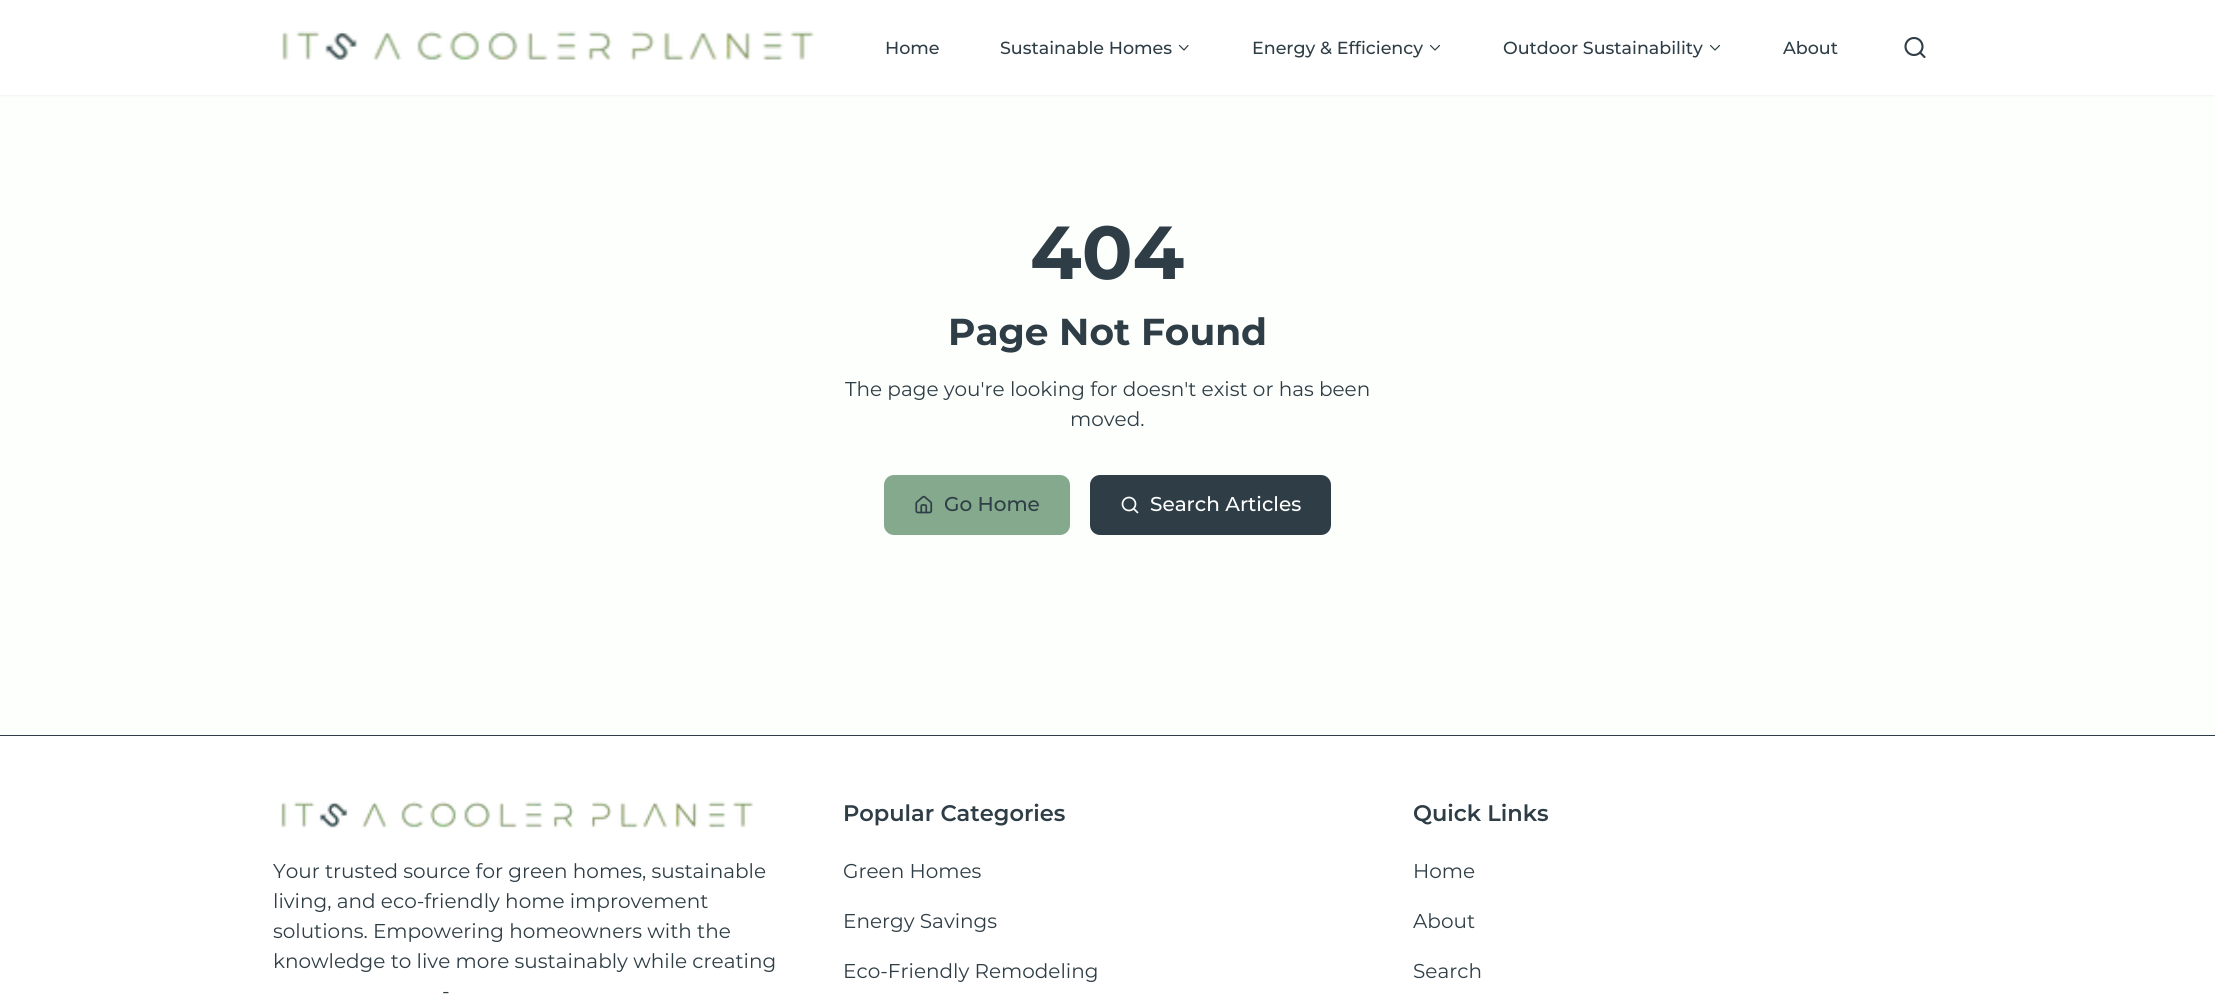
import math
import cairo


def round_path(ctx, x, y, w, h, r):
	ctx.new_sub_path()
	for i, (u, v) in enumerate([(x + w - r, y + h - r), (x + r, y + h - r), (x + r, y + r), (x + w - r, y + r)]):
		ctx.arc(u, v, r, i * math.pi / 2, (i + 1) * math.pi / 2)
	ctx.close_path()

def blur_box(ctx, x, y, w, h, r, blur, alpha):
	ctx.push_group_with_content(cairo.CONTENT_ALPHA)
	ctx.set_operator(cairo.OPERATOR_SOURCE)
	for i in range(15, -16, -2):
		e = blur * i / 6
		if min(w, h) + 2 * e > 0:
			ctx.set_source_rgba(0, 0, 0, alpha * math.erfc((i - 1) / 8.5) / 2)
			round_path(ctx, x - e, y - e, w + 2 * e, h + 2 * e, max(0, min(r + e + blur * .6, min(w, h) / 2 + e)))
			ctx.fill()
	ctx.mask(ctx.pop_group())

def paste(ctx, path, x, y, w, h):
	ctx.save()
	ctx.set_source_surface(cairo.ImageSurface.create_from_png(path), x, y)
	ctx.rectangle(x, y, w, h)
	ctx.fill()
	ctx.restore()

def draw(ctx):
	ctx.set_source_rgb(0.992, 1, 0.988)
	ctx.paint()
	ctx.set_source_rgb(0, 0, 0)
	blur_box(ctx, 0, 1, 2215, 95, 0, 1, 0.05)
	ctx.set_source_rgb(1, 1, 1)
	ctx.rectangle(0, 0, 2215, 95)
	ctx.fill()
	paste(ctx, 'media/1.png', 282, 31, 532, 29)
	ctx.select_font_face('Montserrat Medium')
	ctx.set_font_size(17.5)
	ctx.set_source_rgb(0.184, 0.243, 0.275)
	ctx.move_to(885, 54)
	ctx.show_text('Home')
	ctx.move_to(1000, 54)
	ctx.show_text('Sustainable Homes')
	ctx.new_path()
	ctx.move_to(1188, 45.5)
	ctx.line_to(1184, 50)
	ctx.line_to(1179.5, 45.5)
	ctx.set_line_width(1.2)
	ctx.set_line_cap(cairo.LINE_CAP_ROUND)
	ctx.set_line_join(cairo.LINE_JOIN_ROUND)
	ctx.stroke()
	ctx.move_to(1252, 54)
	ctx.show_text('Energy & Efficiency')
	ctx.new_path()
	ctx.move_to(1439.5, 45.5)
	ctx.line_to(1435, 50)
	ctx.line_to(1430.5, 45.5)
	ctx.stroke()
	ctx.move_to(1503, 54)
	ctx.show_text('Outdoor Sustainability')
	ctx.new_path()
	ctx.move_to(1719.5, 45.5)
	ctx.line_to(1715, 50)
	ctx.line_to(1710.5, 45.5)
	ctx.stroke()
	ctx.move_to(1783, 54)
	ctx.show_text('About')
	ctx.new_path()
	ctx.arc(1914, 46.5, 8.5, 0, 2 * math.pi)
	ctx.set_line_width(2.1)
	ctx.set_line_cap(cairo.LINE_CAP_BUTT)
	ctx.set_line_join(cairo.LINE_JOIN_MITER)
	ctx.stroke()
	ctx.new_path()
	ctx.move_to(1924.5, 57)
	ctx.line_to(1920, 52.5)
	ctx.set_line_cap(cairo.LINE_CAP_ROUND)
	ctx.set_line_join(cairo.LINE_JOIN_ROUND)
	ctx.stroke()
	ctx.select_font_face('Montserrat', cairo.FONT_SLANT_NORMAL, cairo.FONT_WEIGHT_BOLD)
	ctx.set_font_size(75)
	ctx.move_to(1030, 279)
	ctx.show_text('404')
	ctx.set_font_size(37.5)
	ctx.move_to(948, 345)
	ctx.show_text('Page Not Found')
	ctx.select_font_face('Montserrat')
	ctx.set_font_size(20)
	ctx.move_to(845, 396)
	ctx.show_text('The page you\'re looking for doesn\'t exist or has been')
	ctx.move_to(1070, 426)
	ctx.show_text('moved.')
	ctx.set_source_rgb(0.518, 0.663, 0.549)
	round_path(ctx, 884, 475, 186, 60, 10)
	ctx.fill()
	paste(ctx, 'media/2.png', 915, 495, 18, 19)
	ctx.select_font_face('Montserrat Medium')
	ctx.set_source_rgb(0.184, 0.243, 0.275)
	ctx.move_to(944, 511)
	ctx.show_text('Go Home')
	round_path(ctx, 1090, 475, 241, 60, 10)
	ctx.fill()
	ctx.arc(1129, 504, 6.5, 0, 2 * math.pi)
	ctx.set_source_rgb(1, 1, 1)
	ctx.set_line_width(1.7)
	ctx.set_line_cap(cairo.LINE_CAP_BUTT)
	ctx.set_line_join(cairo.LINE_JOIN_MITER)
	ctx.stroke()
	ctx.new_path()
	ctx.move_to(1137.5, 512.5)
	ctx.line_to(1134, 509)
	ctx.set_line_cap(cairo.LINE_CAP_ROUND)
	ctx.set_line_join(cairo.LINE_JOIN_ROUND)
	ctx.stroke()
	ctx.move_to(1150, 511)
	ctx.show_text('Search Articles')
	ctx.rectangle(0, 736, 2215, 258)
	ctx.fill()
	ctx.set_source_rgb(0.184, 0.243, 0.275)
	ctx.rectangle(0, 735, 2215, 1)
	ctx.fill()
	paste(ctx, 'media/3.png', 281, 801, 472, 27)
	ctx.select_font_face('Montserrat')
	for x, y, s in [
		(273, 878, 'Your trusted source for green homes, sustainable'),
		(273, 908, 'living, and eco-friendly home improvement'),
		(273, 938, 'solutions. Empowering homeowners with the'),
		(273, 968, 'knowledge to live more sustainably while creating'),
		(442, 998, '-'),
	]:
		ctx.move_to(x, y)
		ctx.show_text(s)
	ctx.select_font_face('Montserrat SemiBold')
	ctx.set_font_size(22.5)
	ctx.move_to(843, 821)
	ctx.show_text('Popular Categories')
	ctx.select_font_face('Montserrat')
	ctx.set_font_size(20)
	for x, y, s in [
		(843, 878, 'Green Homes'),
		(843, 928, 'Energy Savings'),
		(843, 978, 'Eco-Friendly Remodeling'),
	]:
		ctx.move_to(x, y)
		ctx.show_text(s)
	ctx.select_font_face('Montserrat SemiBold')
	ctx.set_font_size(22.5)
	ctx.move_to(1413, 821)
	ctx.show_text('Quick Links')
	ctx.select_font_face('Montserrat')
	ctx.set_font_size(20)
	for x, y, s in [
		(1413, 878, 'Home'),
		(1413, 928, 'About'),
		(1413, 978, 'Search'),
	]:
		ctx.move_to(x, y)
		ctx.show_text(s)


surface = cairo.ImageSurface(cairo.FORMAT_RGB24, 2215, 994)
ctx = cairo.Context(surface)
options = cairo.FontOptions()
options.set_hint_metrics(cairo.HINT_METRICS_OFF)
options.set_hint_style(cairo.HINT_STYLE_NONE)
ctx.set_font_options(options)
ctx.set_miter_limit(4)
draw(ctx)
surface.write_to_png('image.png')
